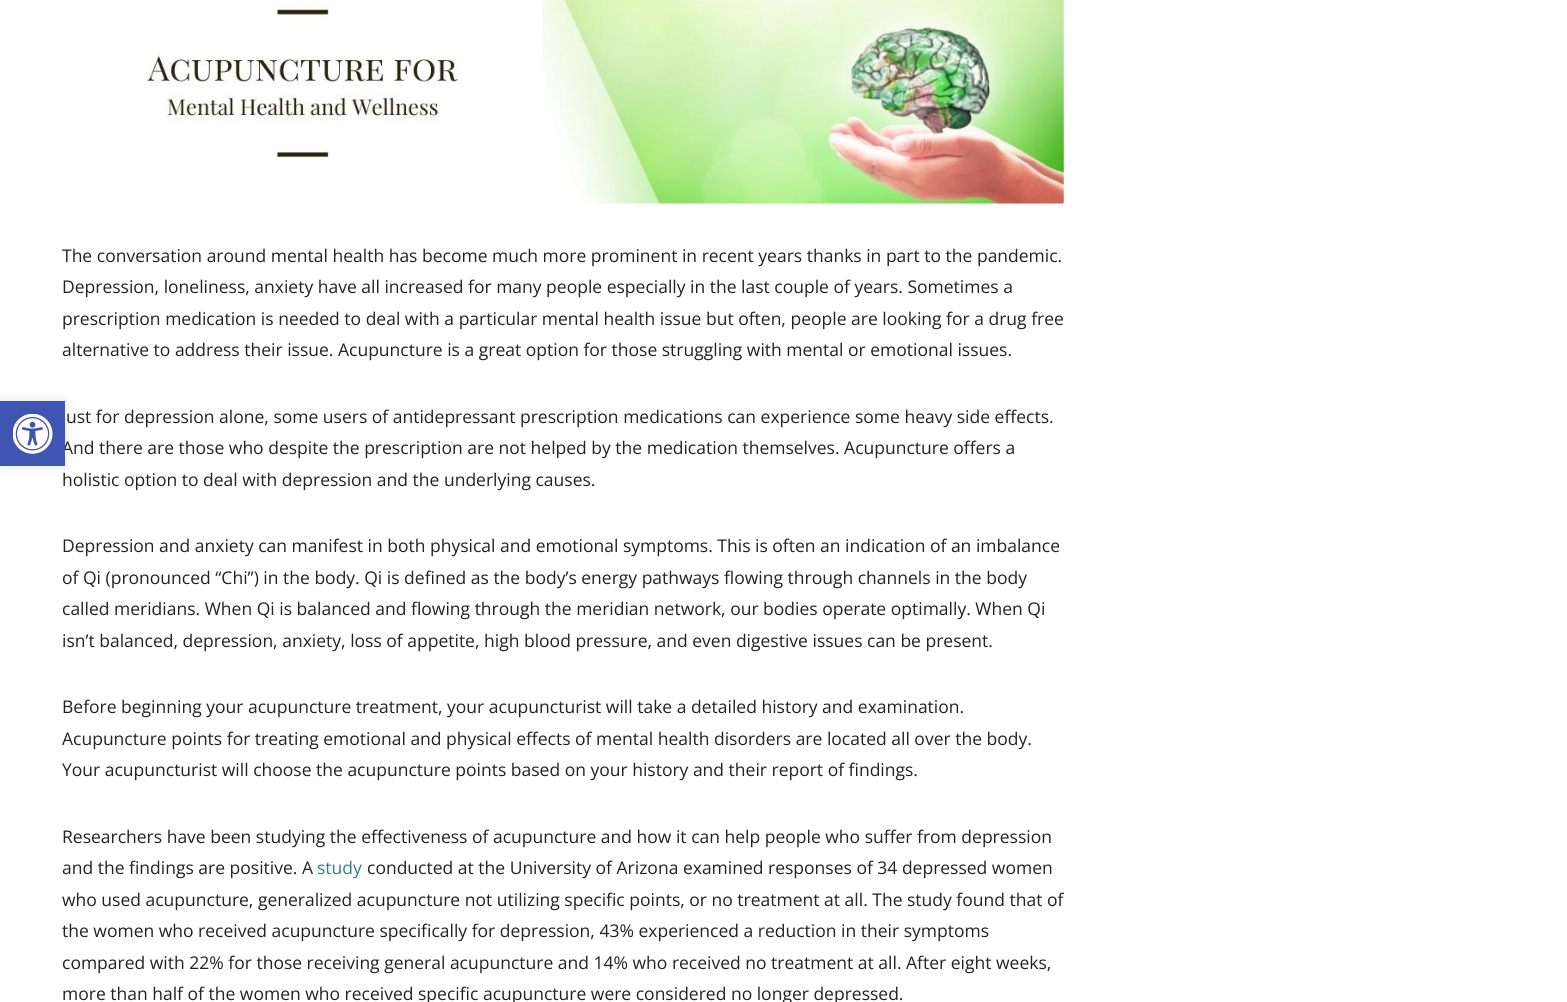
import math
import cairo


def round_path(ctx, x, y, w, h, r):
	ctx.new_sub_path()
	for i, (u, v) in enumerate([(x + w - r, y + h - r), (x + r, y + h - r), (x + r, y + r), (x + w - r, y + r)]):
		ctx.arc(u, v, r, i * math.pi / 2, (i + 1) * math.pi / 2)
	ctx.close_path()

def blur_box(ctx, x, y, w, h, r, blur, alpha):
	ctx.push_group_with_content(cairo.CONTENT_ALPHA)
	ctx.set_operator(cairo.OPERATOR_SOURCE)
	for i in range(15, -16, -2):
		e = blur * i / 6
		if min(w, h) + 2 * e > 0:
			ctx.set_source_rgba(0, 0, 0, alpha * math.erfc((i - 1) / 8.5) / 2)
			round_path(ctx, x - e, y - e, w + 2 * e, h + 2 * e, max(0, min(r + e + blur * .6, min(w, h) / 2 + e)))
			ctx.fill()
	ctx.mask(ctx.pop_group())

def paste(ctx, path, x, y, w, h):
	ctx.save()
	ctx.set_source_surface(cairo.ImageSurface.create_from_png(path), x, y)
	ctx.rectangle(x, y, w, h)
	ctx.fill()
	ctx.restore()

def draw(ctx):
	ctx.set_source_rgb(1, 1, 1)
	ctx.paint()
	ctx.set_source_rgb(0, 0, 0)
	blur_box(ctx, 0, 401, 65, 65, 0, 6, 0.1)
	ctx.select_font_face('Open Sans')
	ctx.set_font_size(17.5)
	ctx.set_source_rgb(0.133, 0.133, 0.133)
	ctx.move_to(62, 454)
	ctx.show_text('And there are those who despite the prescription are not helped by the medication themselves. Acupuncture offers a')
	ctx.set_source_rgb(0.251, 0.329, 0.698)
	ctx.rectangle(0, 401, 65, 65)
	ctx.fill()
	paste(ctx, 'media/1.png', 13, 414, 40, 40)
	paste(ctx, 'media/2.png', 144, 0, 920, 204)
	ctx.set_source_rgb(0.133, 0.133, 0.133)
	for x, y, s in [
		(62, 262, 'The conversation around mental health has become much more prominent in recent years thanks in part to the pandemic.'),
		(62, 293, 'Depression, loneliness, anxiety have all increased for many people especially in the last couple of years. Sometimes a'),
		(62, 325, 'prescription medication is needed to deal with a particular mental health issue but often, people are looking for a drug free'),
		(62, 356, 'alternative to address their issue. Acupuncture is a great option for those struggling with mental or emotional issues.'),
		(66, 423, 'ust for depression alone, some users of antidepressant prescription medications can experience some heavy side effects.'),
		(62, 486, 'holistic option to deal with depression and the underlying causes.'),
		(62, 552, 'Depression and anxiety can manifest in both physical and emotional symptoms. This is often an indication of an imbalance'),
		(62, 584, 'of Qi (pronounced “Chi”) in the body. Qi is defined as the body’s energy pathways flowing through channels in the body'),
		(62, 615, 'called meridians. When Qi is balanced and flowing through the meridian network, our bodies operate optimally. When Qi'),
		(62, 647, 'isn’t balanced, depression, anxiety, loss of appetite, high blood pressure, and even digestive issues can be present.'),
		(62, 713, 'Before beginning your acupuncture treatment, your acupuncturist will take a detailed history and examination.'),
		(62, 745, 'Acupuncture points for treating emotional and physical effects of mental health disorders are located all over the body.'),
		(62, 776, 'Your acupuncturist will choose the acupuncture points based on your history and their report of findings.'),
		(62, 843, 'Researchers have been studying the effectiveness of acupuncture and how it can help people who suffer from depression'),
		(62, 874, 'and the findings are positive. A'),
	]:
		ctx.move_to(x, y)
		ctx.show_text(s)
	ctx.set_source_rgb(0.208, 0.494, 0.573)
	ctx.move_to(317, 874)
	ctx.show_text('study')
	ctx.set_source_rgb(0.133, 0.133, 0.133)
	for x, y, s in [
		(367, 874, 'conducted at the University of Arizona examined responses of 34 depressed women'),
		(62, 906, 'who used acupuncture, generalized acupuncture not utilizing specific points, or no treatment at all. The study found that of'),
		(62, 937, 'the women who received acupuncture specifically for depression, 43% experienced a reduction in their symptoms'),
		(62, 969, 'compared with 22% for those receiving general acupuncture and 14% who received no treatment at all. After eight weeks,'),
		(62, 1000, 'more than half of the women who received specific acupuncture were considered no longer depressed.'),
	]:
		ctx.move_to(x, y)
		ctx.show_text(s)


surface = cairo.ImageSurface(cairo.FORMAT_RGB24, 1567, 1002)
ctx = cairo.Context(surface)
options = cairo.FontOptions()
options.set_hint_metrics(cairo.HINT_METRICS_OFF)
options.set_hint_style(cairo.HINT_STYLE_NONE)
ctx.set_font_options(options)
ctx.set_miter_limit(4)
draw(ctx)
surface.write_to_png('image.png')
